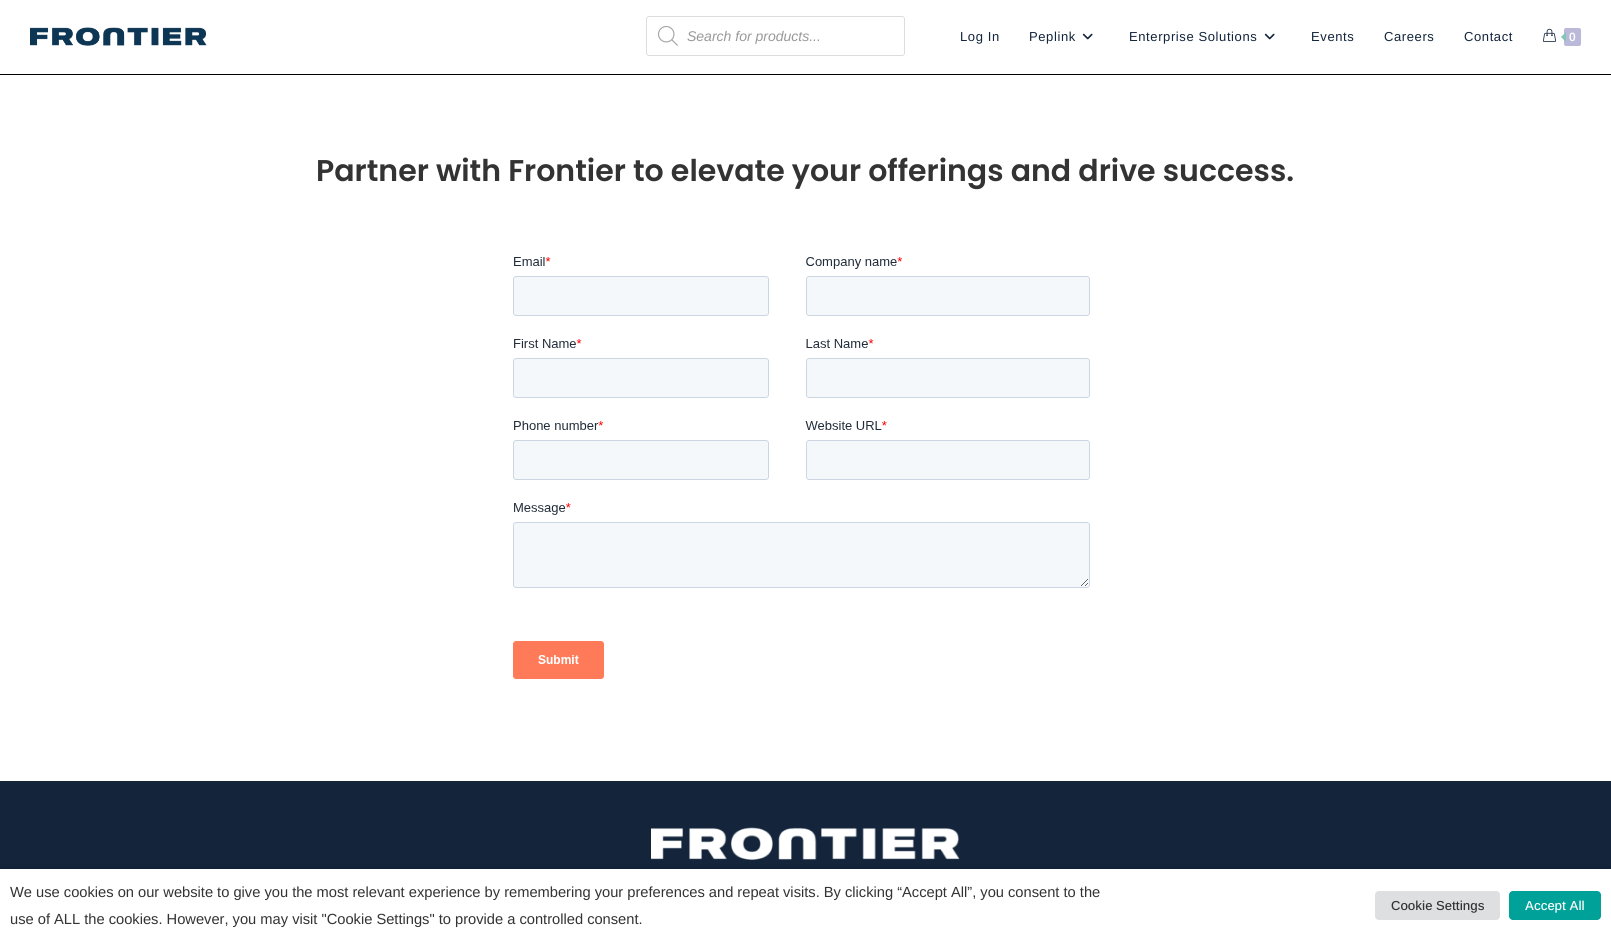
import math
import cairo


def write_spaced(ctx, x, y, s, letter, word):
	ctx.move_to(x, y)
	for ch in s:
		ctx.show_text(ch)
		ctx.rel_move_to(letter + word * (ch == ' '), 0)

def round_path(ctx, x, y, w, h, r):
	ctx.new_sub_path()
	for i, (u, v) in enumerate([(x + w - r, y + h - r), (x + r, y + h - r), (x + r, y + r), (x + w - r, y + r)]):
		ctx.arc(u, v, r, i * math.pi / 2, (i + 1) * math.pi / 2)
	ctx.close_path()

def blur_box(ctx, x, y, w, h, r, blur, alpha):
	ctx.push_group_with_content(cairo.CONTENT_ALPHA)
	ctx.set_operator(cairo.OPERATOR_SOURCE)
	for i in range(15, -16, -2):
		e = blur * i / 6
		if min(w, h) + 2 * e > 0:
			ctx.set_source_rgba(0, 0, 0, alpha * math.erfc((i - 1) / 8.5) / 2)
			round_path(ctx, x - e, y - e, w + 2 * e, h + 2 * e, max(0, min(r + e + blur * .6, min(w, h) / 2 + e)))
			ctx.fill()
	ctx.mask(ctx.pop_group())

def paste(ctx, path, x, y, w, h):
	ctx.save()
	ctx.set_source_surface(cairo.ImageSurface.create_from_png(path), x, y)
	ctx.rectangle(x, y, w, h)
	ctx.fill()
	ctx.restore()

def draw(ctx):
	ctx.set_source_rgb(1, 1, 1)
	ctx.paint()
	ctx.set_source_rgb(0, 0, 0)
	ctx.rectangle(0, 74, 1611, 1)
	ctx.fill()
	paste(ctx, 'media/1.png', 30, 27, 177, 19)
	round_path(ctx, 646.5, 16.5, 258, 39, 2.5)
	ctx.set_source_rgb(0.867, 0.867, 0.867)
	ctx.set_line_width(1)
	ctx.stroke()
	paste(ctx, 'media/2.png', 658, 26, 20, 20)
	ctx.select_font_face('Arimo', cairo.FONT_SLANT_ITALIC)
	ctx.set_font_size(14)
	ctx.set_source_rgb(0.6, 0.6, 0.6)
	ctx.move_to(687, 41)
	ctx.show_text('Search for products...')
	ctx.select_font_face('Arimo')
	ctx.set_font_size(13)
	ctx.set_source_rgb(0.078, 0.141, 0.231)
	write_spaced(ctx, 960, 41, 'Log In', 0.6, 0)
	write_spaced(ctx, 1029, 41, 'Peplink', 0.6, 0)
	paste(ctx, 'media/3.png', 1082, 33, 11, 7)
	write_spaced(ctx, 1129, 41, 'Enterprise Solutions', 0.6, 0)
	paste(ctx, 'media/3.png', 1264, 33, 11, 7)
	for x, y, s in [
		(1311, 41, 'Events'),
		(1384, 41, 'Careers'),
		(1464, 41, 'Contact'),
	]:
		write_spaced(ctx, x, y, s, 0.6, 0)
	paste(ctx, 'media/4.png', 1543, 28, 13, 14)
	ctx.set_source_rgb(0.729, 0.725, 0.855)
	round_path(ctx, 1564, 28, 17, 18, 2)
	ctx.fill()
	ctx.set_source_rgb(0.51, 0.78, 0.71)
	ctx.new_path()
	ctx.move_to(1566, 32)
	ctx.line_to(1566, 42)
	ctx.line_to(1561, 37)
	ctx.close_path()
	ctx.fill()
	ctx.select_font_face('Arimo SemiBold')
	ctx.set_font_size(12)
	ctx.set_source_rgb(1, 1, 1)
	ctx.move_to(1569, 41)
	ctx.show_text('0')
	ctx.select_font_face('Poppins SemiBold')
	ctx.set_font_size(30)
	ctx.set_source_rgb(0.2, 0.2, 0.2)
	ctx.move_to(316, 181)
	ctx.show_text('Partner with Frontier to elevate your offerings and drive success.')
	paste(ctx, 'media/5.png', 513, 257, 577, 422)
	ctx.set_source_rgb(0.078, 0.141, 0.231)
	ctx.rectangle(0, 781, 1611, 88)
	ctx.fill()
	paste(ctx, 'media/6.png', 651, 827, 309, 33)
	ctx.set_source_rgb(0, 0, 0)
	blur_box(ctx, 0, 874, 1611, 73, 0, 5, 0.5)
	ctx.set_source_rgb(1, 1, 1)
	ctx.rectangle(0, 869, 1611, 73)
	ctx.fill()
	ctx.select_font_face('Arimo')
	ctx.set_font_size(14.67)
	ctx.set_source_rgb(0.2, 0.2, 0.2)
	ctx.move_to(10, 897)
	ctx.show_text('We use cookies on our website to give you the most relevant experience by remembering your preferences and repeat visits. By clicking “Accept All”, you consent to the')
	ctx.move_to(10, 924)
	ctx.show_text('use of ALL the cookies. However, you may visit "Cookie Settings" to provide a controlled consent.')
	ctx.set_source_rgb(0.871, 0.875, 0.878)
	round_path(ctx, 1375, 891, 125, 29, 4)
	ctx.fill()
	ctx.select_font_face('Arimo Medium')
	ctx.set_font_size(13)
	ctx.set_source_rgb(0.2, 0.2, 0.2)
	ctx.move_to(1391, 910)
	ctx.show_text('Cookie Settings')
	ctx.set_source_rgb(0, 0.631, 0.6)
	round_path(ctx, 1509, 891, 92, 29, 4)
	ctx.fill()
	ctx.set_source_rgb(1, 1, 1)
	ctx.move_to(1525, 910)
	ctx.show_text('Accept All')


surface = cairo.ImageSurface(cairo.FORMAT_RGB24, 1611, 942)
ctx = cairo.Context(surface)
options = cairo.FontOptions()
options.set_hint_metrics(cairo.HINT_METRICS_OFF)
options.set_hint_style(cairo.HINT_STYLE_NONE)
ctx.set_font_options(options)
ctx.set_miter_limit(4)
draw(ctx)
surface.write_to_png('image.png')
